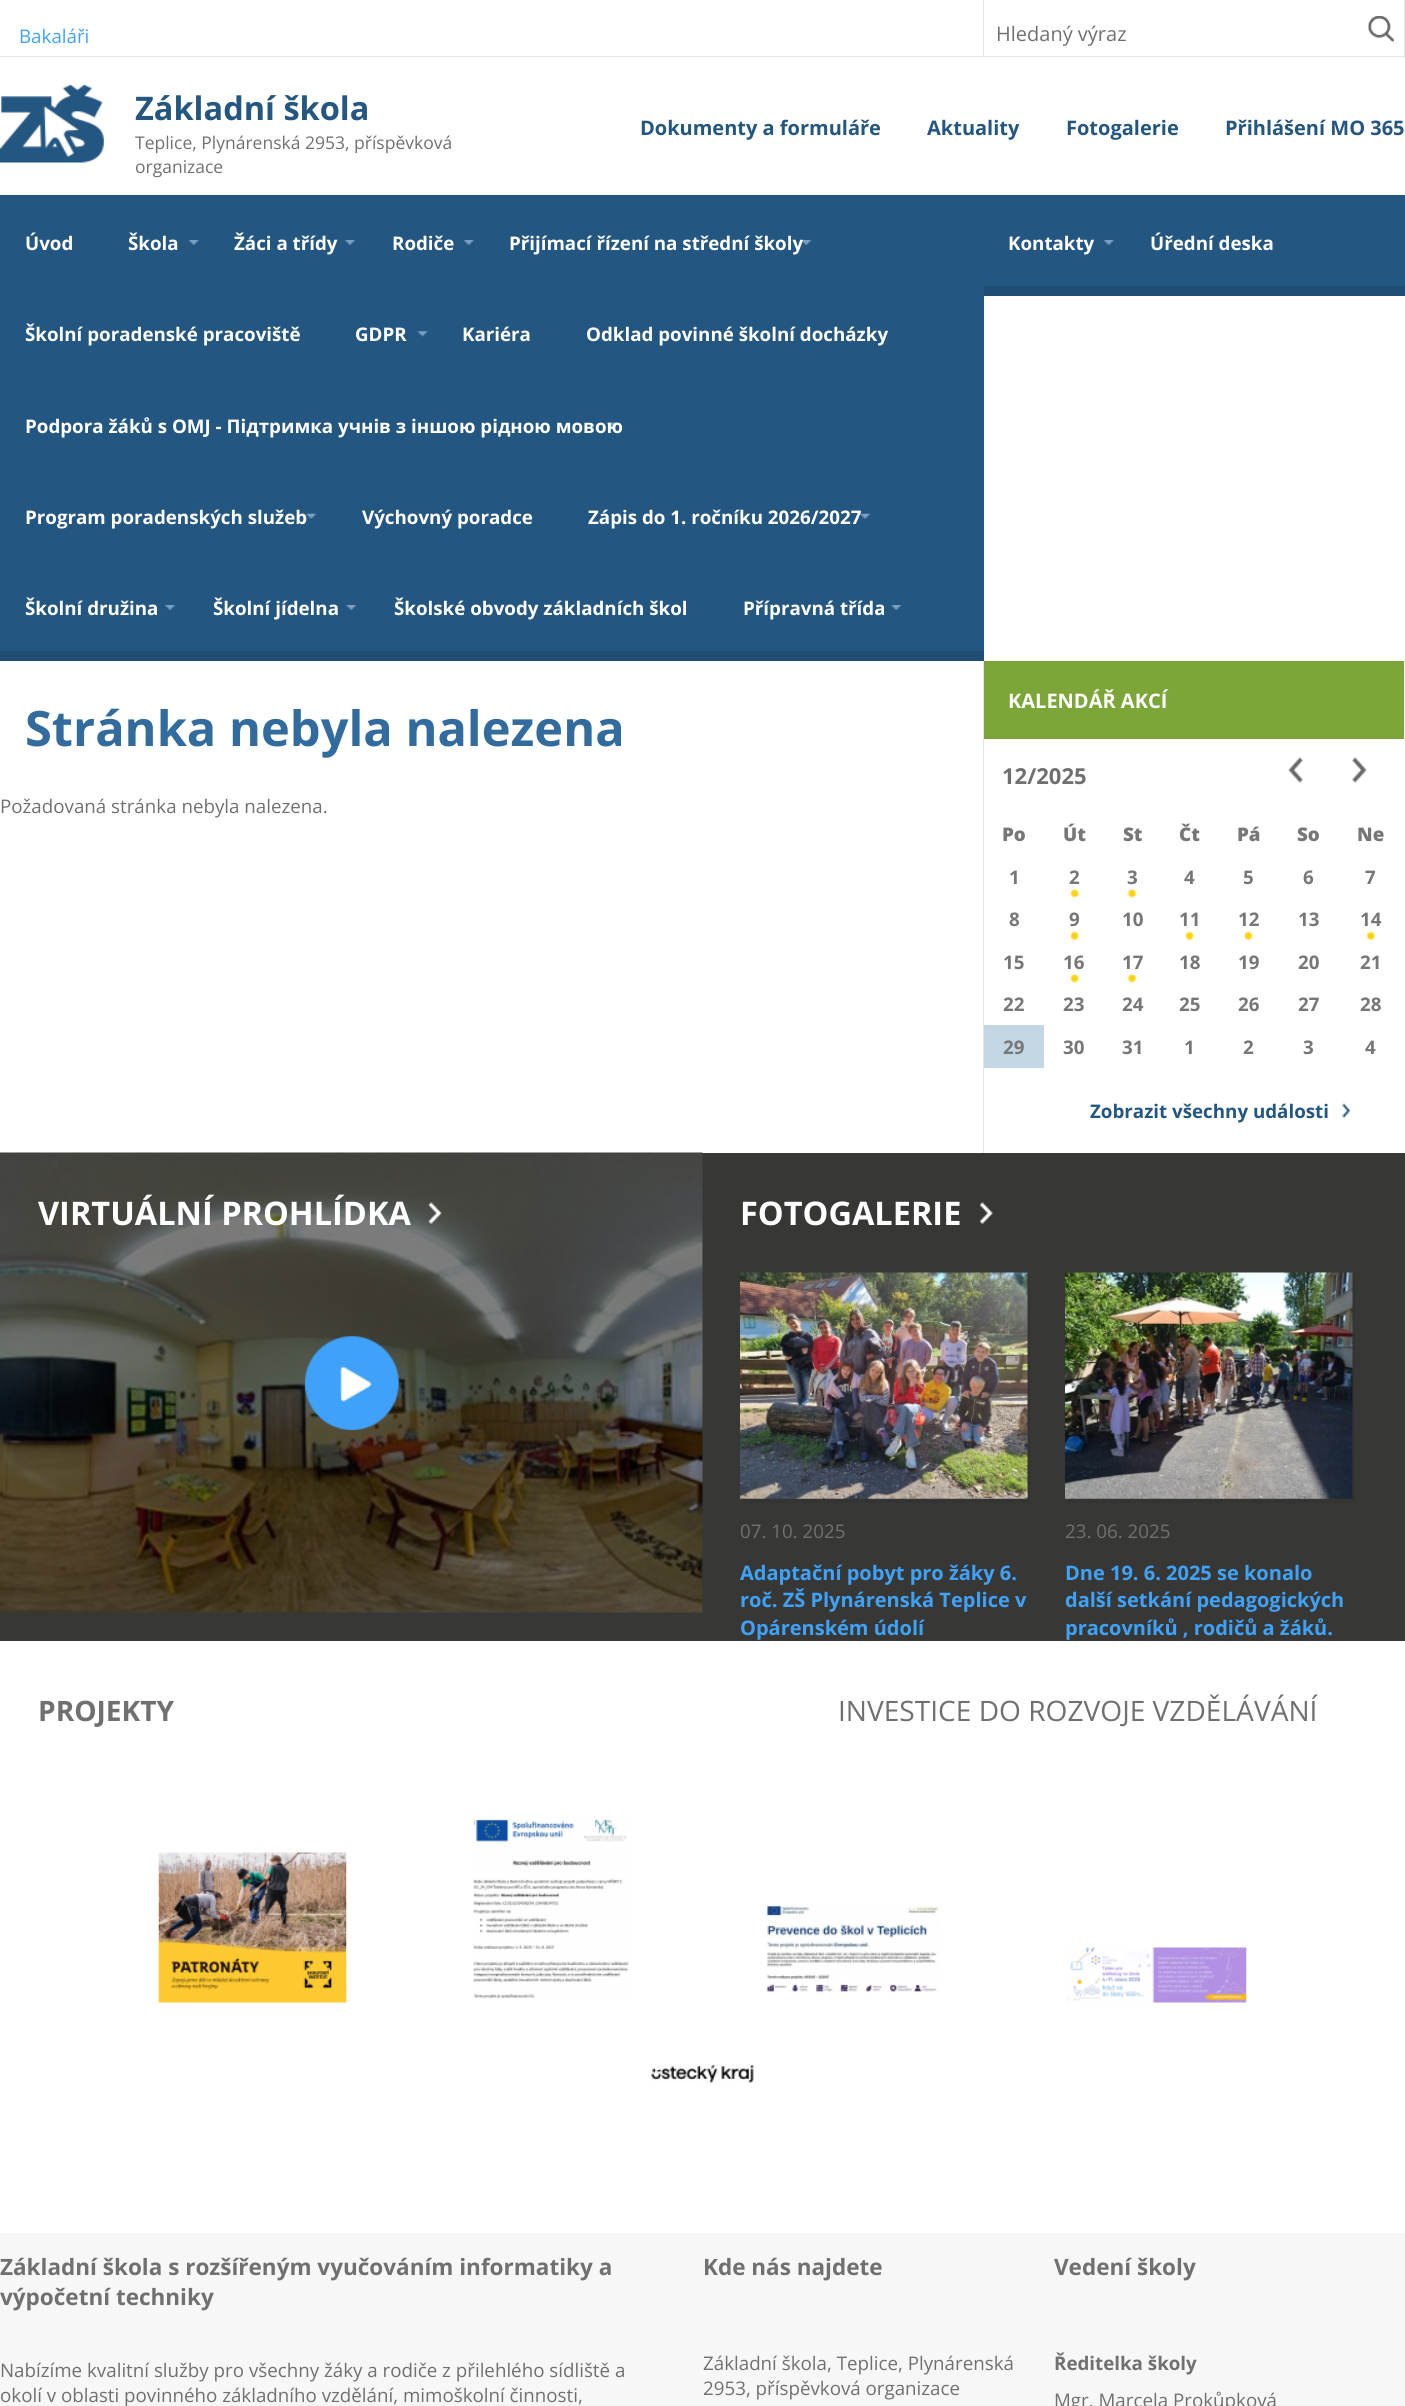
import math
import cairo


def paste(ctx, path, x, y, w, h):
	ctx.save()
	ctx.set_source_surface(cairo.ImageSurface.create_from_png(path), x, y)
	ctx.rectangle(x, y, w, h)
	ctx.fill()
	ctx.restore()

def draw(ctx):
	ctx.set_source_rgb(1, 1, 1)
	ctx.paint()
	ctx.set_source_rgb(0.898, 0.898, 0.898)
	ctx.rectangle(1404, 0, 1, 58)
	ctx.fill()
	ctx.rectangle(0, 56, 1405, 1)
	ctx.fill()
	ctx.select_font_face('Open Sans')
	ctx.set_font_size(18.75)
	ctx.set_source_rgb(0.247, 0.635, 0.973)
	ctx.move_to(19, 43)
	ctx.show_text('Bakaláři')
	ctx.set_source_rgb(0.898, 0.898, 0.898)
	ctx.rectangle(983, 0, 1, 56)
	ctx.fill()
	ctx.set_font_size(20)
	ctx.set_source_rgb(0.439, 0.439, 0.439)
	ctx.move_to(996, 41)
	ctx.show_text('Hledaný výraz')
	paste(ctx, 'media/1.png', 1368, 16, 26, 26)
	paste(ctx, 'media/2.png', 1368, 16, 26, 26)
	paste(ctx, 'media/3.png', 0, 85, 104, 78)
	ctx.select_font_face('Open Sans', cairo.FONT_SLANT_NORMAL, cairo.FONT_WEIGHT_BOLD)
	ctx.set_font_size(32.5)
	ctx.set_source_rgb(0.141, 0.337, 0.51)
	ctx.move_to(135, 120)
	ctx.show_text('Základní škola')
	ctx.select_font_face('Open Sans')
	ctx.set_font_size(17.5)
	ctx.set_source_rgb(0.439, 0.439, 0.439)
	ctx.move_to(135, 149)
	ctx.show_text('Teplice, Plynárenská 2953, příspěvková')
	ctx.move_to(135, 173)
	ctx.show_text('organizace')
	ctx.select_font_face('Open Sans', cairo.FONT_SLANT_NORMAL, cairo.FONT_WEIGHT_BOLD)
	ctx.set_font_size(20)
	ctx.set_source_rgb(0.141, 0.337, 0.51)
	for x, y, s in [
		(640, 135, 'Dokumenty a formuláře'),
		(927, 135, 'Aktuality'),
		(1066, 135, 'Fotogalerie'),
		(1225, 135, 'Přihlášení MO 365'),
	]:
		ctx.move_to(x, y)
		ctx.show_text(s)
	ctx.rectangle(0, 195, 984, 456)
	ctx.fill()
	ctx.set_source_rgb(0.125, 0.302, 0.455)
	ctx.rectangle(0, 651, 984, 10)
	ctx.fill()
	ctx.set_font_size(18.75)
	ctx.set_source_rgb(1, 1, 1)
	ctx.move_to(25, 250)
	ctx.show_text('Úvod')
	paste(ctx, 'media/4.png', 188, 240, 11, 5)
	ctx.move_to(128, 250)
	ctx.show_text('Škola')
	paste(ctx, 'media/5.png', 345, 240, 10, 5)
	ctx.move_to(234, 250)
	ctx.show_text('Žáci a třídy')
	paste(ctx, 'media/4.png', 463, 240, 11, 5)
	ctx.move_to(392, 250)
	ctx.show_text('Rodiče')
	paste(ctx, 'media/6.png', 801, 240, 11, 5)
	ctx.move_to(509, 250)
	ctx.show_text('Přijímací řízení na střední školy')
	ctx.move_to(25, 341)
	ctx.show_text('Školní poradenské pracoviště')
	paste(ctx, 'media/7.png', 417, 331, 11, 6)
	for x, y, s in [
		(355, 341, 'GDPR'),
		(462, 341, 'Kariéra'),
		(586, 341, 'Odklad povinné školní docházky'),
	]:
		ctx.move_to(x, y)
		ctx.show_text(s)
	paste(ctx, 'media/8.png', 606, 422, 11, 6)
	ctx.move_to(25, 433)
	ctx.show_text('Podpora žáků s OMJ - Підтримка учнів з іншою рідною мовою')
	paste(ctx, 'media/9.png', 306, 513, 11, 6)
	ctx.move_to(25, 524)
	ctx.show_text('Program poradenských služeb')
	ctx.move_to(362, 524)
	ctx.show_text('Výchovný poradce')
	paste(ctx, 'media/10.png', 860, 513, 10, 6)
	ctx.move_to(588, 524)
	ctx.show_text('Zápis do 1. ročníku 2026/2027')
	paste(ctx, 'media/5.png', 165, 605, 10, 5)
	ctx.move_to(25, 615)
	ctx.show_text('Školní družina')
	paste(ctx, 'media/6.png', 346, 605, 11, 5)
	ctx.move_to(213, 615)
	ctx.show_text('Školní jídelna')
	ctx.move_to(394, 615)
	ctx.show_text('Školské obvody základních škol')
	paste(ctx, 'media/6.png', 891, 605, 11, 5)
	ctx.move_to(743, 615)
	ctx.show_text('Přípravná třída')
	ctx.set_source_rgb(0.141, 0.337, 0.51)
	ctx.rectangle(984, 195, 421, 91)
	ctx.fill()
	ctx.set_source_rgb(0.125, 0.302, 0.455)
	ctx.rectangle(984, 286, 421, 10)
	ctx.fill()
	paste(ctx, 'media/11.png', 1103, 240, 11, 5)
	ctx.set_source_rgb(1, 1, 1)
	ctx.move_to(1008, 250)
	ctx.show_text('Kontakty')
	ctx.move_to(1150, 250)
	ctx.show_text('Úřední deska')
	ctx.set_font_size(48.75)
	ctx.set_source_rgb(0.196, 0.42, 0.616)
	ctx.move_to(25, 746)
	ctx.show_text('Stránka nebyla nalezena')
	ctx.select_font_face('Open Sans')
	ctx.set_font_size(18.75)
	ctx.set_source_rgb(0.439, 0.439, 0.439)
	ctx.move_to(0, 813)
	ctx.show_text('Požadovaná stránka nebyla nalezena.')
	ctx.set_source_rgb(0.898, 0.898, 0.898)
	ctx.rectangle(983, 661, 1, 492)
	ctx.fill()
	ctx.set_source_rgb(0.486, 0.651, 0.22)
	ctx.rectangle(984, 661, 420, 78)
	ctx.fill()
	ctx.select_font_face('Open Sans', cairo.FONT_SLANT_NORMAL, cairo.FONT_WEIGHT_BOLD)
	ctx.set_font_size(20)
	ctx.set_source_rgb(1, 1, 1)
	ctx.move_to(1008, 708)
	ctx.show_text('KALENDÁŘ AKCÍ')
	ctx.set_font_size(22)
	ctx.set_source_rgb(0.439, 0.439, 0.439)
	ctx.move_to(1002, 784)
	ctx.show_text('12/2025')
	paste(ctx, 'media/12.png', 1288, 757, 15, 26)
	paste(ctx, 'media/13.png', 1352, 757, 15, 26)
	ctx.select_font_face('Open Sans ExtraBold')
	ctx.set_font_size(18.75)
	ctx.set_source_rgb(0.467, 0.467, 0.467)
	for x, y, s in [
		(1002, 841, 'Po'),
		(1063, 841, 'Út'),
		(1123, 841, 'St'),
		(1179, 841, 'Čt'),
		(1237, 841, 'Pá'),
		(1297, 841, 'So'),
		(1357, 841, 'Ne'),
	]:
		ctx.move_to(x, y)
		ctx.show_text(s)
	ctx.select_font_face('Open Sans', cairo.FONT_SLANT_NORMAL, cairo.FONT_WEIGHT_BOLD)
	ctx.move_to(1009, 884)
	ctx.show_text('1')
	paste(ctx, 'media/14.png', 1070, 888, 9, 10)
	ctx.move_to(1069, 884)
	ctx.show_text('2')
	paste(ctx, 'media/15.png', 1127, 888, 10, 10)
	for x, y, s in [
		(1127, 884, '3'),
		(1184, 884, '4'),
		(1243, 884, '5'),
		(1303, 884, '6'),
		(1365, 884, '7'),
		(1009, 926, '8'),
	]:
		ctx.move_to(x, y)
		ctx.show_text(s)
	paste(ctx, 'media/16.png', 1070, 897, 9, 43)
	ctx.move_to(1069, 926)
	ctx.show_text('9')
	ctx.move_to(1122, 926)
	ctx.show_text('10')
	paste(ctx, 'media/17.png', 1185, 931, 9, 9)
	ctx.move_to(1179, 926)
	ctx.show_text('11')
	paste(ctx, 'media/18.png', 1243, 931, 10, 9)
	ctx.move_to(1238, 926)
	ctx.show_text('12')
	ctx.move_to(1298, 926)
	ctx.show_text('13')
	paste(ctx, 'media/19.png', 1366, 931, 9, 9)
	ctx.move_to(1360, 926)
	ctx.show_text('14')
	ctx.move_to(1003, 969)
	ctx.show_text('15')
	paste(ctx, 'media/14.png', 1070, 973, 9, 10)
	ctx.move_to(1063, 969)
	ctx.show_text('16')
	paste(ctx, 'media/15.png', 1127, 973, 10, 10)
	for x, y, s in [
		(1122, 969, '17'),
		(1179, 969, '18'),
		(1238, 969, '19'),
		(1298, 969, '20'),
		(1360, 969, '21'),
		(1003, 1011, '22'),
		(1063, 1011, '23'),
		(1122, 1011, '24'),
		(1179, 1011, '25'),
		(1238, 1011, '26'),
		(1298, 1011, '27'),
		(1360, 1011, '28'),
	]:
		ctx.move_to(x, y)
		ctx.show_text(s)
	ctx.set_source_rgb(0.765, 0.839, 0.894)
	ctx.rectangle(984, 1025, 60, 43)
	ctx.fill()
	ctx.set_source_rgb(0.467, 0.467, 0.467)
	for x, y, s in [
		(1003, 1054, '29'),
		(1063, 1054, '30'),
		(1122, 1054, '31'),
		(1184, 1054, '1'),
		(1243, 1054, '2'),
		(1303, 1054, '3'),
		(1365, 1054, '4'),
	]:
		ctx.move_to(x, y)
		ctx.show_text(s)
	ctx.set_source_rgb(0.141, 0.337, 0.51)
	ctx.move_to(1090, 1118)
	ctx.show_text('Zobrazit všechny události')
	paste(ctx, 'media/20.png', 1342, 1103, 8, 15)
	ctx.set_source_rgb(0.216, 0.22, 0.212)
	ctx.rectangle(0, 1153, 1405, 488)
	ctx.fill()
	paste(ctx, 'media/21.png', 0, 1152, 703, 461)
	paste(ctx, 'media/22.png', 305, 1336, 94, 94)
	paste(ctx, 'media/23.png', 428, 1202, 14, 22)
	ctx.set_font_size(32.5)
	ctx.set_source_rgb(1, 1, 1)
	ctx.move_to(38, 1225)
	ctx.show_text('VIRTUÁLNÍ PROHLÍDKA')
	paste(ctx, 'media/24.png', 980, 1202, 13, 22)
	ctx.move_to(740, 1225)
	ctx.show_text('FOTOGALERIE')
	ctx.set_source_rgb(0.204, 0.208, 0.2)
	ctx.new_path()
	ctx.move_to(743, 1499)
	ctx.line_to(743, 1503)
	ctx.line_to(1030, 1503)
	ctx.line_to(1030, 1276)
	ctx.line_to(1028, 1276)
	ctx.line_to(1028, 1499)
	ctx.close_path()
	ctx.fill()
	paste(ctx, 'media/25.png', 740, 1272, 288, 227)
	ctx.select_font_face('Open Sans')
	ctx.set_font_size(18.75)
	ctx.set_source_rgb(0.439, 0.439, 0.439)
	ctx.move_to(740, 1538)
	ctx.show_text('07. 10. 2025')
	ctx.select_font_face('Open Sans', cairo.FONT_SLANT_NORMAL, cairo.FONT_WEIGHT_BOLD)
	ctx.set_font_size(20)
	ctx.set_source_rgb(0.247, 0.635, 0.973)
	for x, y, s in [
		(740, 1580, 'Adaptační pobyt pro žáky 6.'),
		(740, 1607, 'roč. ZŠ Plynárenská Teplice v'),
		(740, 1635, 'Opárenském údolí'),
	]:
		ctx.move_to(x, y)
		ctx.show_text(s)
	ctx.set_source_rgb(0.204, 0.208, 0.2)
	ctx.new_path()
	ctx.move_to(1068, 1499)
	ctx.line_to(1068, 1503)
	ctx.line_to(1355, 1503)
	ctx.line_to(1355, 1276)
	ctx.line_to(1352, 1276)
	ctx.line_to(1352, 1499)
	ctx.close_path()
	ctx.fill()
	paste(ctx, 'media/26.png', 1065, 1272, 288, 227)
	ctx.select_font_face('Open Sans')
	ctx.set_font_size(18.75)
	ctx.set_source_rgb(0.439, 0.439, 0.439)
	ctx.move_to(1065, 1538)
	ctx.show_text('23. 06. 2025')
	ctx.select_font_face('Open Sans', cairo.FONT_SLANT_NORMAL, cairo.FONT_WEIGHT_BOLD)
	ctx.set_font_size(20)
	ctx.set_source_rgb(0.247, 0.635, 0.973)
	for x, y, s in [
		(1065, 1580, 'Dne 19. 6. 2025 se konalo'),
		(1065, 1607, 'další setkání pedagogických'),
		(1065, 1635, 'pracovníků , rodičů a žáků.'),
	]:
		ctx.move_to(x, y)
		ctx.show_text(s)
	ctx.set_font_size(28.1)
	ctx.set_source_rgb(0.439, 0.439, 0.439)
	ctx.move_to(38, 1721)
	ctx.show_text('PROJEKTY')
	ctx.select_font_face('Open Sans')
	ctx.move_to(838, 1721)
	ctx.show_text('INVESTICE DO ROZVOJE VZDĚLÁVÁNÍ')
	paste(ctx, 'media/27.png', 158, 1852, 189, 151)
	paste(ctx, 'media/28.png', 473, 1819, 156, 180)
	paste(ctx, 'media/29.png', 765, 1904, 174, 89)
	paste(ctx, 'media/30.png', 1065, 1947, 182, 56)
	paste(ctx, 'media/31.png', 651, 2064, 103, 19)
	ctx.set_source_rgb(0.965, 0.965, 0.965)
	ctx.rectangle(0, 2233, 1405, 173)
	ctx.fill()
	ctx.select_font_face('Open Sans', cairo.FONT_SLANT_NORMAL, cairo.FONT_WEIGHT_BOLD)
	ctx.set_font_size(22.5)
	ctx.set_source_rgb(0.439, 0.439, 0.439)
	ctx.move_to(0, 2275)
	ctx.show_text('Základní škola s rozšířeným vyučováním informatiky a')
	ctx.move_to(0, 2305)
	ctx.show_text('výpočetní techniky')
	ctx.select_font_face('Open Sans')
	ctx.set_font_size(18.75)
	ctx.move_to(0, 2377)
	ctx.show_text('Nabízíme kvalitní služby pro všechny žáky a rodiče z přilehlého sídliště a')
	ctx.move_to(0, 2402)
	ctx.show_text('okolí v oblasti povinného základního vzdělání, mimoškolní činnosti,')
	ctx.select_font_face('Open Sans', cairo.FONT_SLANT_NORMAL, cairo.FONT_WEIGHT_BOLD)
	ctx.set_font_size(22.5)
	ctx.move_to(703, 2275)
	ctx.show_text('Kde nás najdete')
	ctx.select_font_face('Open Sans')
	ctx.set_font_size(18.75)
	ctx.move_to(703, 2370)
	ctx.show_text('Základní škola, Teplice, Plynárenská')
	ctx.move_to(703, 2395)
	ctx.show_text('2953, příspěvková organizace')
	ctx.select_font_face('Open Sans', cairo.FONT_SLANT_NORMAL, cairo.FONT_WEIGHT_BOLD)
	ctx.set_font_size(22.5)
	ctx.move_to(1054, 2275)
	ctx.show_text('Vedení školy')
	ctx.set_font_size(18.75)
	ctx.move_to(1054, 2370)
	ctx.show_text('Ředitelka školy')
	ctx.select_font_face('Open Sans')
	ctx.move_to(1054, 2407)
	ctx.show_text('Mgr. Marcela Prokůpková')


surface = cairo.ImageSurface(cairo.FORMAT_RGB24, 1405, 2406)
ctx = cairo.Context(surface)
options = cairo.FontOptions()
options.set_hint_metrics(cairo.HINT_METRICS_OFF)
options.set_hint_style(cairo.HINT_STYLE_NONE)
ctx.set_font_options(options)
ctx.set_miter_limit(4)
draw(ctx)
surface.write_to_png('image.png')
